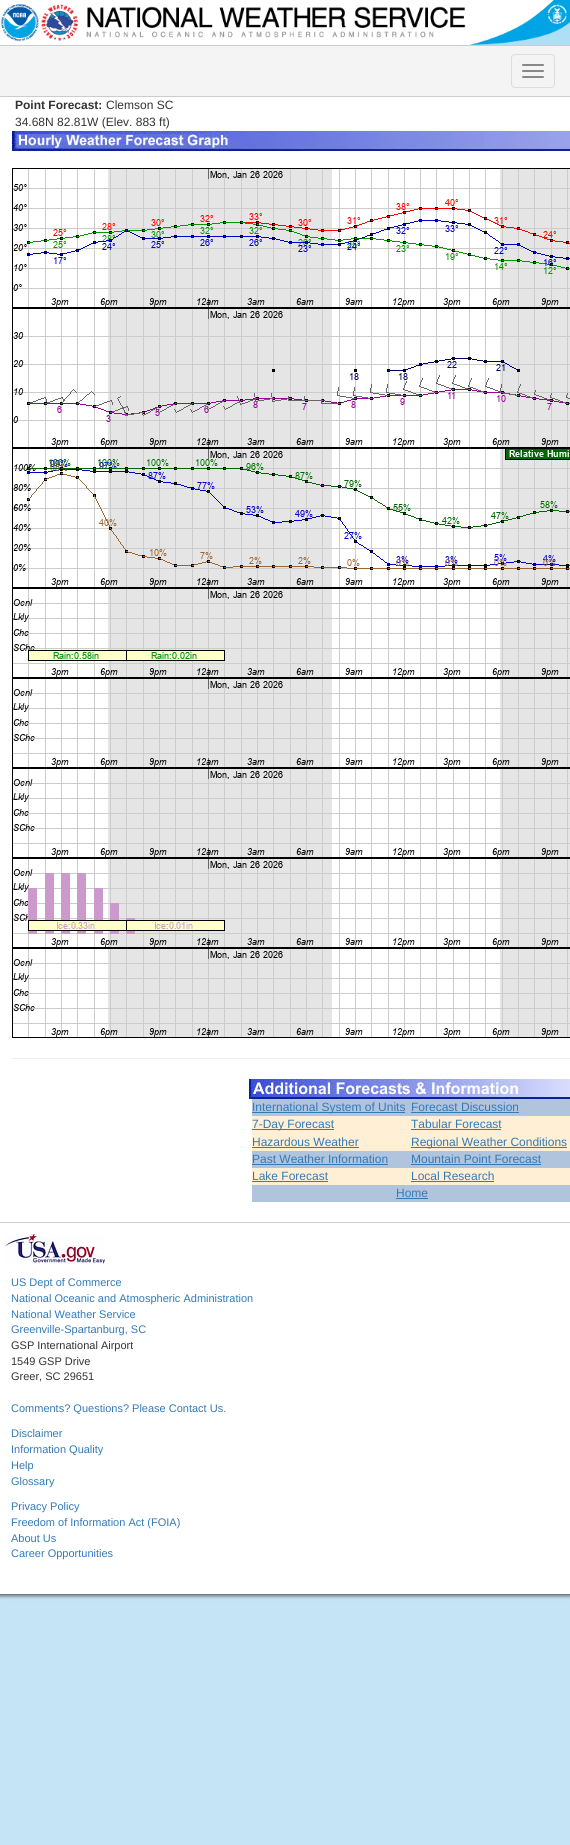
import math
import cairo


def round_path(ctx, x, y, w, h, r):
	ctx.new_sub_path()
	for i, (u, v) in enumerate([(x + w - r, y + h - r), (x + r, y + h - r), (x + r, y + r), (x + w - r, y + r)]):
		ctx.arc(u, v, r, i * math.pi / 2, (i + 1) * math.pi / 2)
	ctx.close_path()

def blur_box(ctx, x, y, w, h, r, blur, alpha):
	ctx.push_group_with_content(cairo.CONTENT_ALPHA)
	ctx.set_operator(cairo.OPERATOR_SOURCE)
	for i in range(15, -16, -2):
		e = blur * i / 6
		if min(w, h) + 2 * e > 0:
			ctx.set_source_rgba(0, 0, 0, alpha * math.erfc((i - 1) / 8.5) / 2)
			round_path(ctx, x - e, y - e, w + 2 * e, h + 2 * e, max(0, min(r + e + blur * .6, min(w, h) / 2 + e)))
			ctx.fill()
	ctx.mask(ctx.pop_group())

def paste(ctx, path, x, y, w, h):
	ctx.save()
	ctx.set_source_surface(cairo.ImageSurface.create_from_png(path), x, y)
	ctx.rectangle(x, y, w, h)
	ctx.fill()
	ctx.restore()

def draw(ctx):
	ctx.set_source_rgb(0.773, 0.898, 0.961)
	ctx.paint()
	ctx.set_source_rgb(0.2, 0.2, 0.2)
	blur_box(ctx, -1, -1, 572, 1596, 0, 2.5, 1)
	ctx.set_source_rgb(1, 1, 1)
	ctx.rectangle(0, 0, 570, 1594)
	ctx.fill()
	paste(ctx, 'media/1.png', 0, 3, 39, 38)
	paste(ctx, 'media/2.png', 41, 4, 425, 37)
	paste(ctx, 'media/3.png', 469, 0, 101, 45)
	ctx.set_source_rgb(0.957, 0.957, 0.957)
	ctx.rectangle(0, 46, 570, 50)
	ctx.fill()
	ctx.set_source_rgb(0.8, 0.8, 0.8)
	ctx.rectangle(0, 45, 570, 1)
	ctx.rectangle(0, 96, 570, 1)
	ctx.fill()
	round_path(ctx, 511.5, 54.5, 43, 33, 3.5)
	ctx.set_source_rgb(0.867, 0.867, 0.867)
	ctx.set_line_width(1)
	ctx.stroke()
	ctx.set_source_rgb(0.533, 0.533, 0.533)
	round_path(ctx, 522, 64, 22, 2, 1)
	ctx.fill()
	round_path(ctx, 522, 70, 22, 2, 1)
	ctx.fill()
	round_path(ctx, 522, 76, 22, 2, 1)
	ctx.fill()
	ctx.select_font_face('Liberation Sans', cairo.FONT_SLANT_NORMAL, cairo.FONT_WEIGHT_BOLD)
	ctx.set_font_size(12)
	ctx.set_source_rgb(0.2, 0.2, 0.2)
	ctx.move_to(15, 109)
	ctx.show_text('Point Forecast:')
	ctx.select_font_face('Liberation Sans')
	ctx.move_to(106, 109)
	ctx.show_text('Clemson SC')
	ctx.move_to(15, 126)
	ctx.show_text('34.68N 82.81W (Elev. 883 ft)')
	paste(ctx, 'media/4.png', 12, 131, 558, 20)
	paste(ctx, 'media/5.png', 12, 168, 558, 870)
	ctx.set_source_rgb(0.933, 0.933, 0.933)
	ctx.rectangle(12, 1058, 558, 1)
	ctx.fill()
	paste(ctx, 'media/6.png', 249, 1079, 321, 20)
	ctx.set_source_rgb(0.69, 0.769, 0.871)
	ctx.rectangle(252, 1099, 318, 17)
	ctx.fill()
	ctx.set_source_rgb(0.2, 0.478, 0.718)
	ctx.rectangle(252, 1112, 153, 1)
	ctx.fill()
	ctx.move_to(252, 1111)
	ctx.show_text('International System of Units')
	ctx.move_to(411, 1111)
	ctx.show_text('Forecast Discussion')
	ctx.rectangle(411, 1112, 108, 1)
	ctx.fill()
	ctx.set_source_rgb(1, 0.937, 0.835)
	ctx.rectangle(252, 1116, 318, 35)
	ctx.fill()
	ctx.set_source_rgb(0.2, 0.478, 0.718)
	ctx.rectangle(252, 1129, 82, 1)
	ctx.fill()
	ctx.move_to(252, 1128)
	ctx.show_text('7-Day Forecast')
	ctx.move_to(411, 1128)
	ctx.show_text('Tabular Forecast')
	ctx.rectangle(411, 1129, 90, 1)
	ctx.fill()
	ctx.move_to(252, 1146)
	ctx.show_text('Hazardous Weather')
	ctx.rectangle(252, 1147, 107, 1)
	ctx.fill()
	ctx.rectangle(411, 1147, 156, 1)
	ctx.fill()
	ctx.move_to(411, 1146)
	ctx.show_text('Regional Weather Conditions')
	ctx.set_source_rgb(0.69, 0.769, 0.871)
	ctx.rectangle(252, 1151, 318, 17)
	ctx.fill()
	ctx.set_source_rgb(0.2, 0.478, 0.718)
	ctx.move_to(252, 1163)
	ctx.show_text('Past Weather Information')
	ctx.rectangle(252, 1164, 136, 1)
	ctx.fill()
	ctx.move_to(411, 1163)
	ctx.show_text('Mountain Point Forecast')
	ctx.rectangle(411, 1164, 130, 1)
	ctx.fill()
	ctx.set_source_rgb(1, 0.937, 0.835)
	ctx.rectangle(252, 1168, 318, 17)
	ctx.fill()
	ctx.set_source_rgb(0.2, 0.478, 0.718)
	ctx.move_to(252, 1180)
	ctx.show_text('Lake Forecast')
	ctx.rectangle(252, 1181, 76, 1)
	ctx.fill()
	ctx.move_to(411, 1180)
	ctx.show_text('Local Research')
	ctx.rectangle(411, 1181, 83, 1)
	ctx.fill()
	ctx.set_source_rgb(0.69, 0.769, 0.871)
	ctx.rectangle(252, 1185, 318, 17)
	ctx.fill()
	ctx.set_source_rgb(0.2, 0.478, 0.718)
	ctx.move_to(396, 1197)
	ctx.show_text('Home')
	ctx.rectangle(396, 1198, 32, 1)
	ctx.fill()
	ctx.set_source_rgb(0.8, 0.8, 0.8)
	ctx.rectangle(0, 1222, 570, 1)
	ctx.fill()
	paste(ctx, 'media/7.png', 5, 1234, 100, 30)
	ctx.set_font_size(11)
	ctx.set_source_rgb(0.2, 0.478, 0.718)
	for x, y, s in [
		(11, 1286, 'US Dept of Commerce'),
		(11, 1302, 'National Oceanic and Atmospheric Administration'),
		(11, 1318, 'National Weather Service'),
		(11, 1333, 'Greenville-Spartanburg, SC'),
	]:
		ctx.move_to(x, y)
		ctx.show_text(s)
	ctx.set_source_rgb(0.2, 0.2, 0.2)
	for x, y, s in [
		(11, 1349, 'GSP International Airport'),
		(11, 1365, '1549 GSP Drive'),
		(11, 1380, 'Greer, SC 29651'),
	]:
		ctx.move_to(x, y)
		ctx.show_text(s)
	ctx.set_source_rgb(0.2, 0.478, 0.718)
	for x, y, s in [
		(11, 1412, 'Comments? Questions? Please Contact Us.'),
		(11, 1437, 'Disclaimer'),
		(11, 1453, 'Information Quality'),
		(11, 1469, 'Help'),
		(11, 1485, 'Glossary'),
		(11, 1510, 'Privacy Policy'),
		(11, 1526, 'Freedom of Information Act (FOIA)'),
		(11, 1542, 'About Us'),
		(11, 1557, 'Career Opportunities'),
	]:
		ctx.move_to(x, y)
		ctx.show_text(s)


surface = cairo.ImageSurface(cairo.FORMAT_RGB24, 570, 1845)
ctx = cairo.Context(surface)
options = cairo.FontOptions()
options.set_hint_metrics(cairo.HINT_METRICS_OFF)
options.set_hint_style(cairo.HINT_STYLE_NONE)
ctx.set_font_options(options)
ctx.set_miter_limit(4)
draw(ctx)
surface.write_to_png('image.png')
